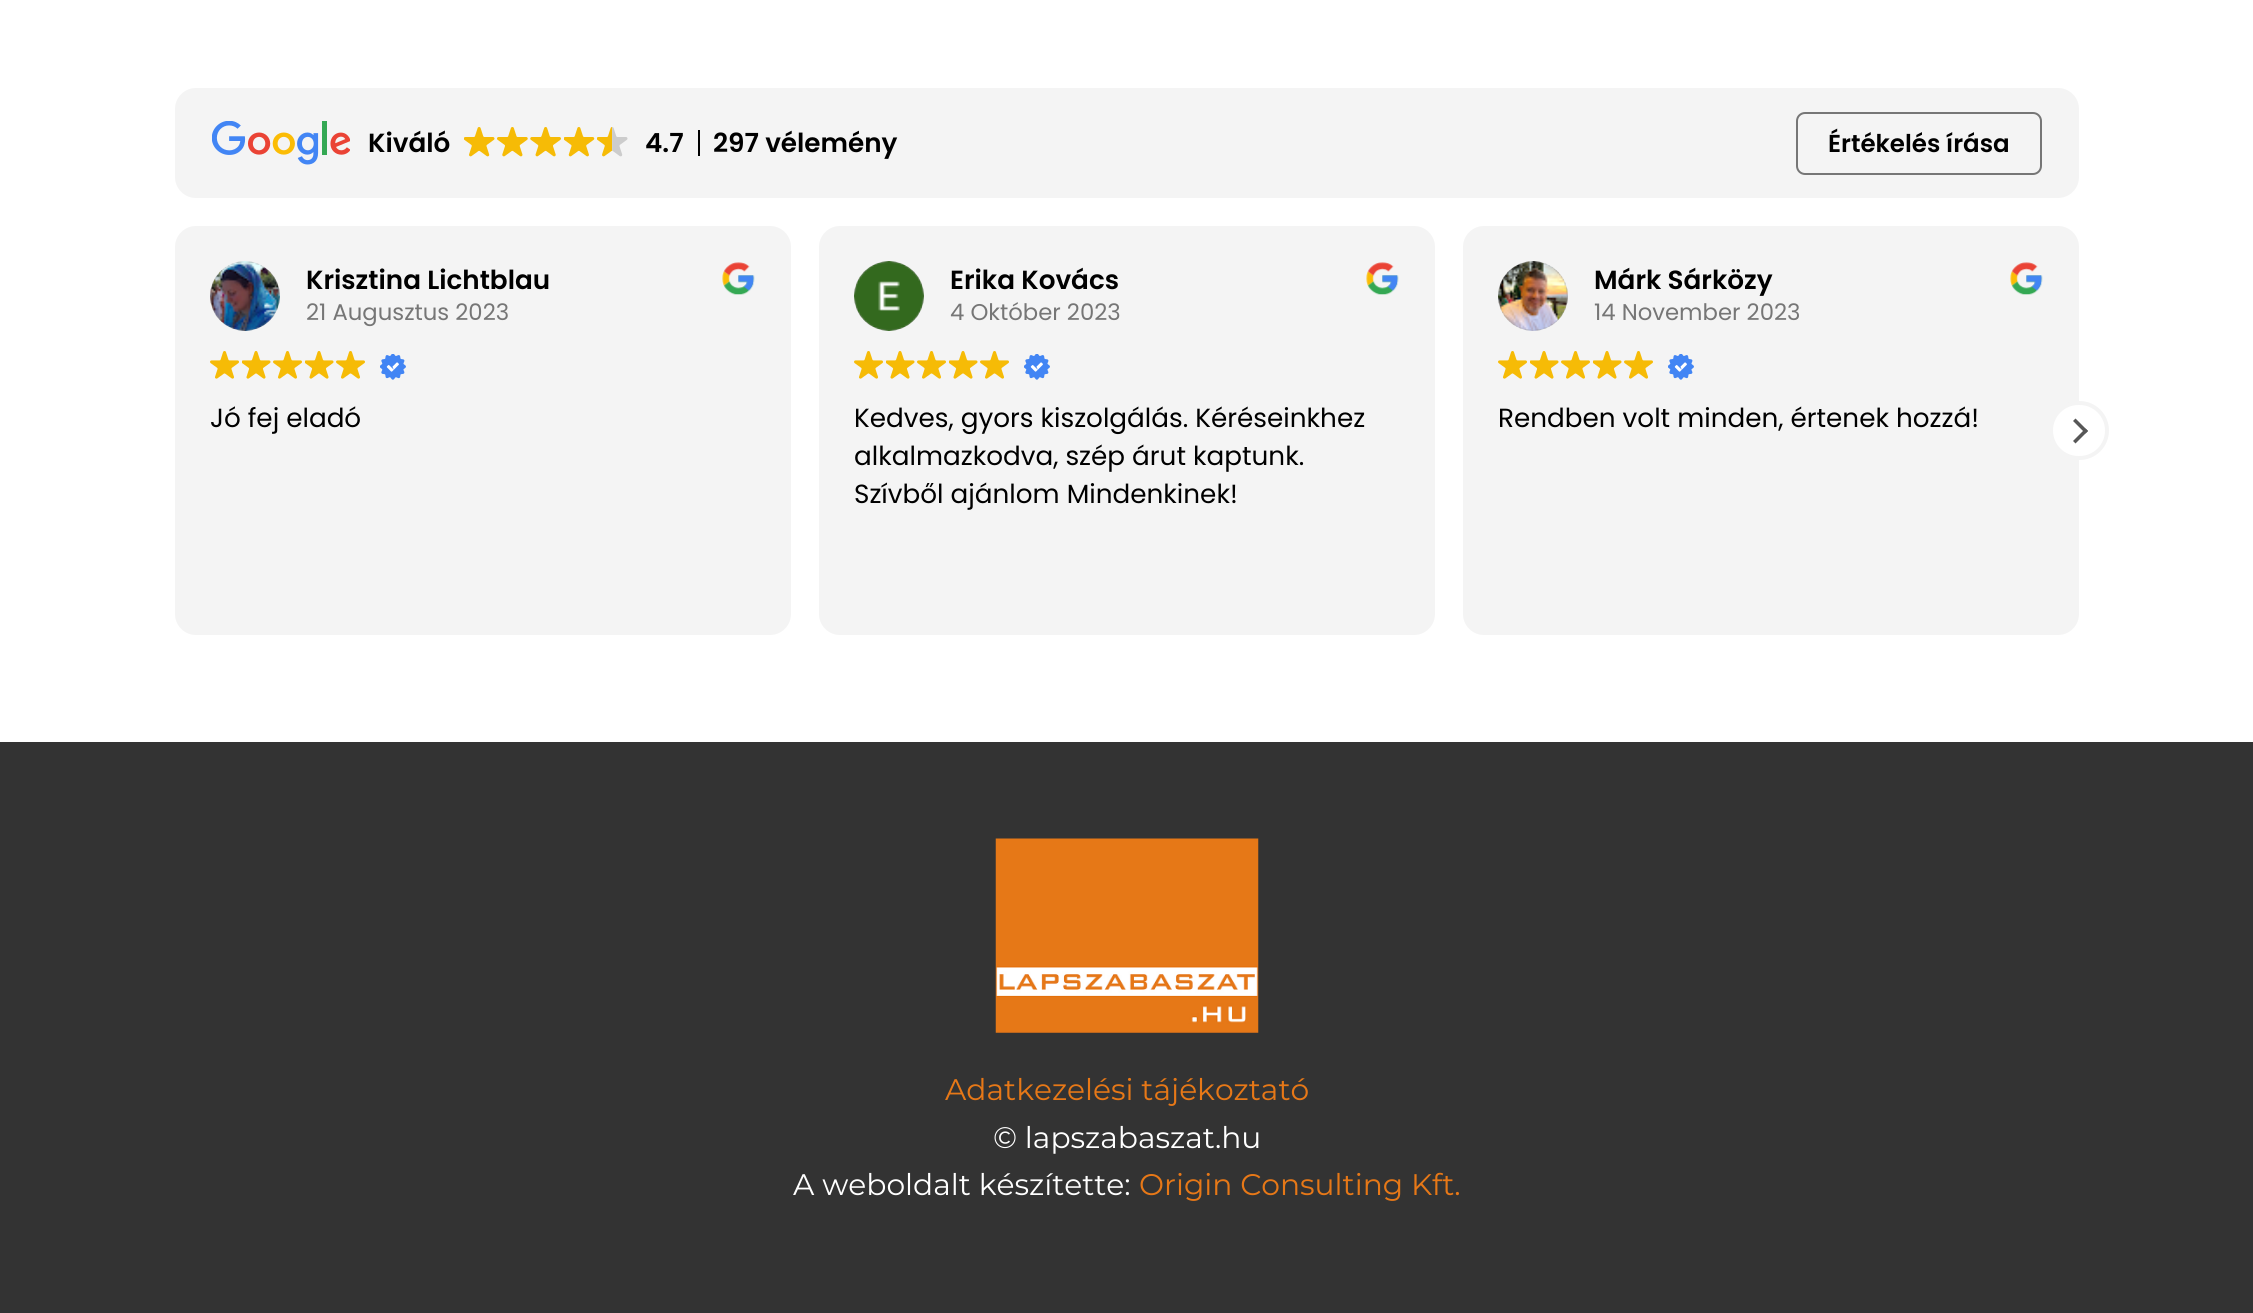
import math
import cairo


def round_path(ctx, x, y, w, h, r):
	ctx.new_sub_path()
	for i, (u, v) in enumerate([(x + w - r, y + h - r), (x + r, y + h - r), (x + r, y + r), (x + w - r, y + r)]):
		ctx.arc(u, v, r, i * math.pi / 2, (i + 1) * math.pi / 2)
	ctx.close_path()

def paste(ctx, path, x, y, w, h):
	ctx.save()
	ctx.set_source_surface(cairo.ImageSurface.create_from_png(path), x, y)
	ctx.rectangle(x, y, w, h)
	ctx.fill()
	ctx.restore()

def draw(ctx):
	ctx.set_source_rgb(1, 1, 1)
	ctx.paint()
	ctx.set_source_rgb(0.957, 0.957, 0.957)
	round_path(ctx, 176, 89, 1902, 108, 20)
	ctx.fill_preserve()
	ctx.stroke()
	paste(ctx, 'media/1.png', 212, 121, 138, 44)
	ctx.select_font_face('Poppins SemiBold')
	ctx.set_font_size(26.25)
	ctx.set_source_rgb(0, 0, 0)
	ctx.move_to(368, 152)
	ctx.show_text('Kiváló')
	paste(ctx, 'media/2.png', 464, 127, 31, 30)
	paste(ctx, 'media/3.png', 497, 127, 31, 30)
	paste(ctx, 'media/4.png', 530, 127, 31, 30)
	paste(ctx, 'media/5.png', 564, 127, 31, 30)
	paste(ctx, 'media/6.png', 597, 127, 31, 30)
	ctx.move_to(645, 152)
	ctx.show_text('4.7')
	ctx.rectangle(698, 130, 2, 26)
	ctx.fill()
	ctx.move_to(713, 152)
	ctx.show_text('297 vélemény')
	round_path(ctx, 1797, 113, 244, 61, 8)
	ctx.set_source_rgb(0.463, 0.463, 0.463)
	ctx.stroke()
	ctx.set_font_size(24.5)
	ctx.set_source_rgb(0, 0, 0)
	ctx.move_to(1828, 152)
	ctx.show_text('Értékelés írása')
	ctx.set_source_rgb(0.957, 0.957, 0.957)
	round_path(ctx, 175, 226, 616, 409, 21)
	ctx.fill()
	paste(ctx, 'media/7.png', 210, 261, 70, 70)
	ctx.set_font_size(26.25)
	ctx.set_source_rgb(0, 0, 0)
	ctx.move_to(306, 289)
	ctx.show_text('Krisztina Lichtblau')
	ctx.select_font_face('Poppins')
	ctx.set_font_size(22.75)
	ctx.set_source_rgb(0.463, 0.463, 0.463)
	ctx.move_to(306, 320)
	ctx.show_text('21 Augusztus 2023')
	paste(ctx, 'media/8.png', 722, 262, 33, 33)
	paste(ctx, 'media/9.png', 210, 351, 29, 28)
	paste(ctx, 'media/10.png', 242, 351, 29, 28)
	paste(ctx, 'media/9.png', 273, 351, 29, 28)
	paste(ctx, 'media/10.png', 305, 351, 29, 28)
	paste(ctx, 'media/9.png', 336, 351, 29, 28)
	paste(ctx, 'media/11.png', 380, 354, 26, 26)
	ctx.set_font_size(26.25)
	ctx.set_source_rgb(0, 0, 0)
	ctx.move_to(210, 427)
	ctx.show_text('Jó fej eladó')
	ctx.set_source_rgb(0.957, 0.957, 0.957)
	round_path(ctx, 819, 226, 616, 409, 21)
	ctx.fill()
	paste(ctx, 'media/12.png', 854, 261, 70, 70)
	ctx.select_font_face('Poppins SemiBold')
	ctx.set_source_rgb(0, 0, 0)
	ctx.move_to(950, 289)
	ctx.show_text('Erika Kovács')
	ctx.select_font_face('Poppins')
	ctx.set_font_size(22.75)
	ctx.set_source_rgb(0.463, 0.463, 0.463)
	ctx.move_to(950, 320)
	ctx.show_text('4 Október 2023')
	paste(ctx, 'media/8.png', 1366, 262, 33, 33)
	paste(ctx, 'media/9.png', 854, 351, 29, 28)
	paste(ctx, 'media/10.png', 886, 351, 29, 28)
	paste(ctx, 'media/9.png', 917, 351, 29, 28)
	paste(ctx, 'media/10.png', 949, 351, 29, 28)
	paste(ctx, 'media/9.png', 980, 351, 29, 28)
	paste(ctx, 'media/11.png', 1024, 354, 26, 26)
	ctx.set_font_size(26.25)
	ctx.set_source_rgb(0, 0, 0)
	for x, y, s in [
		(854, 427, 'Kedves, gyors kiszolgálás. Kéréseinkhez'),
		(854, 465, 'alkalmazkodva, szép árut kaptunk.'),
		(854, 503, 'Szívből ajánlom Mindenkinek!'),
	]:
		ctx.move_to(x, y)
		ctx.show_text(s)
	ctx.set_source_rgb(0.957, 0.957, 0.957)
	round_path(ctx, 1463, 226, 616, 409, 21)
	ctx.fill()
	paste(ctx, 'media/13.png', 1498, 261, 70, 70)
	ctx.select_font_face('Poppins SemiBold')
	ctx.set_source_rgb(0, 0, 0)
	ctx.move_to(1594, 289)
	ctx.show_text('Márk Sárközy')
	ctx.select_font_face('Poppins')
	ctx.set_font_size(22.75)
	ctx.set_source_rgb(0.463, 0.463, 0.463)
	ctx.move_to(1594, 320)
	ctx.show_text('14 November 2023')
	paste(ctx, 'media/8.png', 2010, 262, 33, 33)
	paste(ctx, 'media/9.png', 1498, 351, 29, 28)
	paste(ctx, 'media/10.png', 1530, 351, 29, 28)
	paste(ctx, 'media/9.png', 1561, 351, 29, 28)
	paste(ctx, 'media/10.png', 1593, 351, 29, 28)
	paste(ctx, 'media/9.png', 1624, 351, 29, 28)
	paste(ctx, 'media/11.png', 1668, 354, 26, 26)
	ctx.set_font_size(26.25)
	ctx.set_source_rgb(0, 0, 0)
	ctx.move_to(1498, 427)
	ctx.show_text('Rendben volt minden, értenek hozzá!')
	ctx.set_source_rgb(1, 1, 1)
	round_path(ctx, 2051, 403, 56, 55, 27.5)
	ctx.fill_preserve()
	ctx.set_source_rgb(0.957, 0.957, 0.957)
	ctx.set_line_width(4)
	ctx.stroke()
	ctx.set_source_rgb(0.341, 0.341, 0.341)
	ctx.new_path()
	ctx.move_to(2085.5, 433.5)
	ctx.line_to(2073, 421)
	ctx.line_to(2075.5, 418.5)
	ctx.line_to(2088, 431)
	ctx.close_path()
	ctx.fill()
	ctx.new_path()
	ctx.move_to(2075.5, 443.5)
	ctx.line_to(2073, 441)
	ctx.line_to(2085.5, 428.5)
	ctx.line_to(2088, 431)
	ctx.close_path()
	ctx.fill()
	ctx.set_source_rgb(0.2, 0.2, 0.2)
	ctx.rectangle(0, 742, 2253, 571)
	ctx.fill()
	paste(ctx, 'media/14.png', 995, 838, 264, 195)
	ctx.select_font_face('Montserrat')
	ctx.set_font_size(29.75)
	ctx.set_source_rgb(0.906, 0.471, 0.09)
	ctx.move_to(945, 1100)
	ctx.show_text('Adatkezelési tájékoztató')
	ctx.set_source_rgb(1, 1, 1)
	ctx.move_to(993, 1148)
	ctx.show_text('© lapszabaszat.hu')
	ctx.move_to(793, 1195)
	ctx.show_text('A weboldalt készítette:')
	ctx.set_source_rgb(0.906, 0.471, 0.09)
	ctx.move_to(1139, 1195)
	ctx.show_text('Origin Consulting Kft.')


surface = cairo.ImageSurface(cairo.FORMAT_RGB24, 2253, 1313)
ctx = cairo.Context(surface)
options = cairo.FontOptions()
options.set_hint_metrics(cairo.HINT_METRICS_OFF)
options.set_hint_style(cairo.HINT_STYLE_NONE)
ctx.set_font_options(options)
ctx.set_miter_limit(4)
draw(ctx)
surface.write_to_png('image.png')
